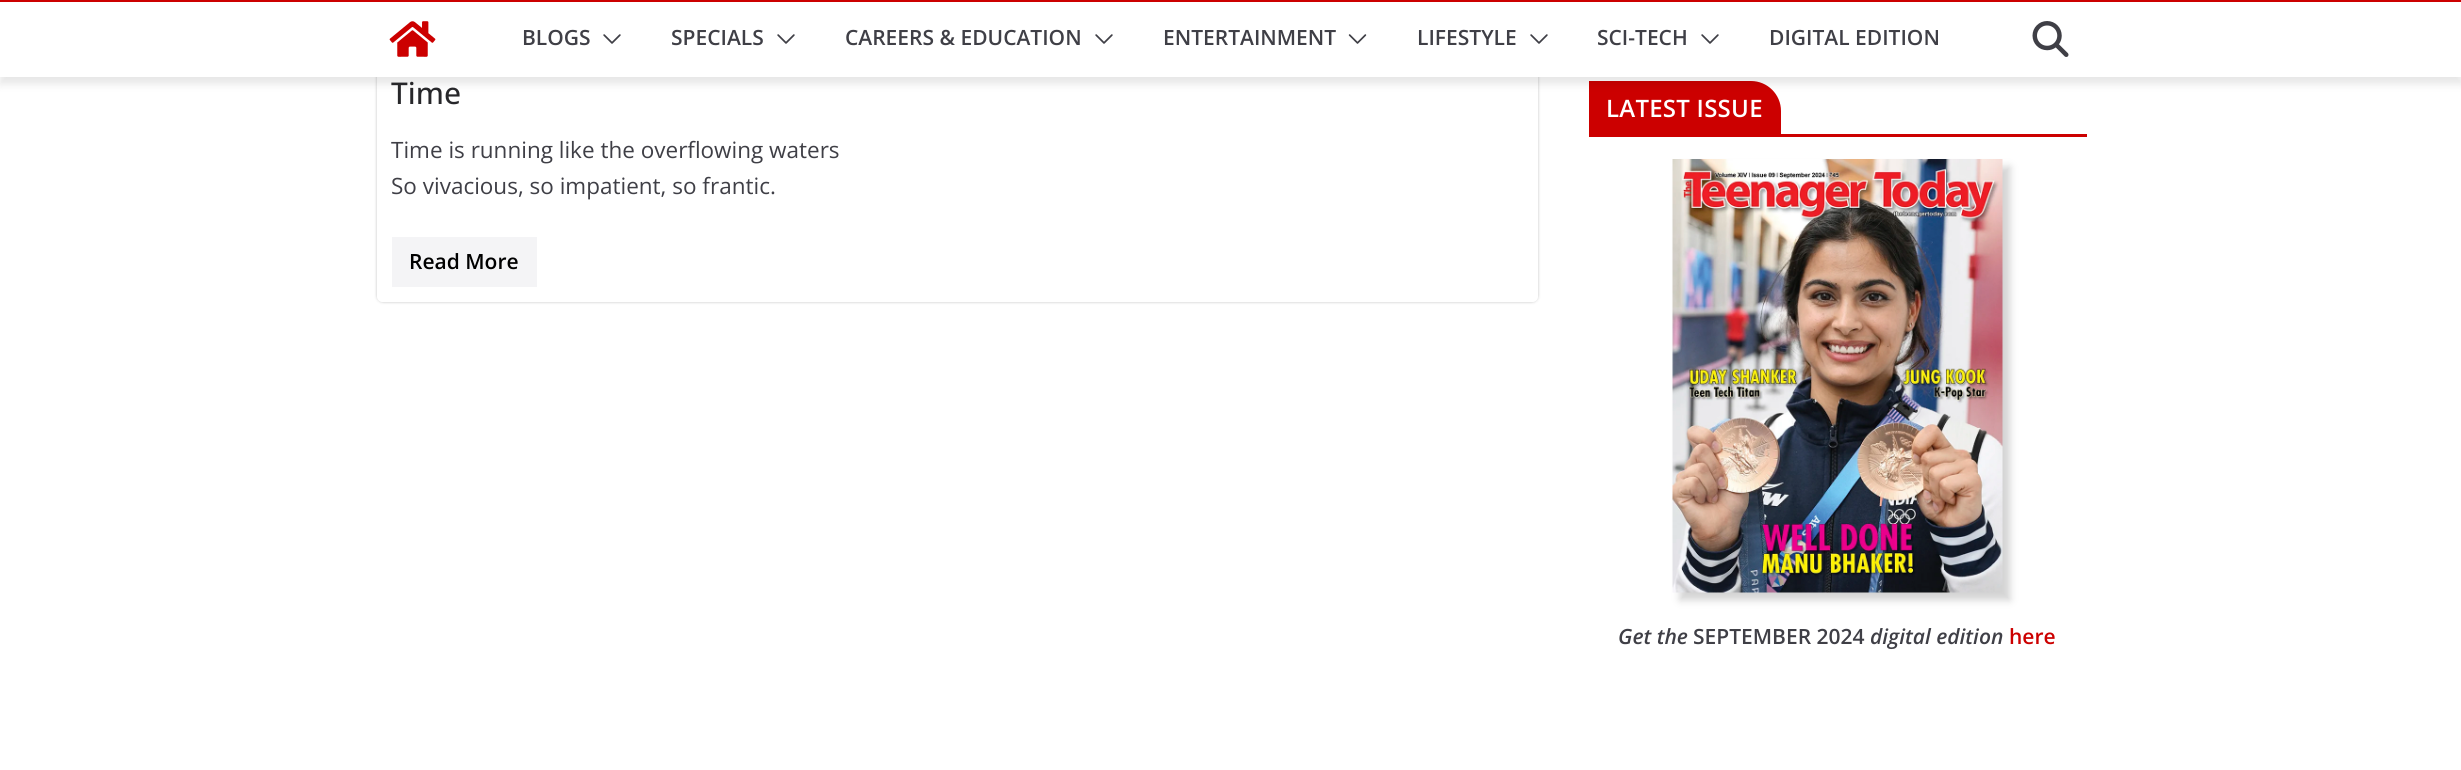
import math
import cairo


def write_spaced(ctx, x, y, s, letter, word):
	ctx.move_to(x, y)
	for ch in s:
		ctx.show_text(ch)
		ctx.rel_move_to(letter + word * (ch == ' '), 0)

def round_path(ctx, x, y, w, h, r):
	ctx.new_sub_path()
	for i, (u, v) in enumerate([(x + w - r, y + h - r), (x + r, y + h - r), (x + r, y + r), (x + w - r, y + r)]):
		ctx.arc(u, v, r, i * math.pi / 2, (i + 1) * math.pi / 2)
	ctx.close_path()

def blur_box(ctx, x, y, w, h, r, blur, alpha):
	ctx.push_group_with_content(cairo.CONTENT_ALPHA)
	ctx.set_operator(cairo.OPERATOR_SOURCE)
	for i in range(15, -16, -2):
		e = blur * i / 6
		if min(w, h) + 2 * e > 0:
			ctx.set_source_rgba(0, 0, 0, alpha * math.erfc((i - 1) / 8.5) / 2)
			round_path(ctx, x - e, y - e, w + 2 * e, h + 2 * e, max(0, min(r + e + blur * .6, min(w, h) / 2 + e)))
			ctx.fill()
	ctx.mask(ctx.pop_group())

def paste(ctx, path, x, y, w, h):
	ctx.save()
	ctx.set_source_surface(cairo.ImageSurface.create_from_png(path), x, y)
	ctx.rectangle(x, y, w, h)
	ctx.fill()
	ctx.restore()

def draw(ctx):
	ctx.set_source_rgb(1, 1, 1)
	ctx.paint()
	ctx.set_source_rgb(0.8, 0, 0)
	ctx.new_path()
	ctx.move_to(1589, 81)
	ctx.line_to(1751, 81)
	ctx.curve_to(1767.5, 81, 1781, 94.5, 1781, 111)
	ctx.line_to(1781, 134)
	ctx.line_to(1589, 134)
	ctx.close_path()
	ctx.fill()
	ctx.set_source_rgb(0, 0, 0)
	blur_box(ctx, 0, 8, 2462, 76, 0, 4.5, 0.1)
	ctx.save()
	ctx.set_fill_rule(cairo.FILL_RULE_EVEN_ODD)
	ctx.new_path()
	ctx.move_to(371, 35)
	ctx.line_to(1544, 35)
	ctx.line_to(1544, 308)
	ctx.line_to(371, 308)
	ctx.close_path()
	ctx.move_to(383, 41)
	ctx.line_to(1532, 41)
	ctx.curve_to(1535.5, 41, 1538, 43.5, 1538, 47)
	ctx.line_to(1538, 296)
	ctx.curve_to(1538, 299.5, 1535.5, 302, 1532, 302)
	ctx.line_to(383, 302)
	ctx.curve_to(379.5, 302, 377, 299.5, 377, 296)
	ctx.line_to(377, 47)
	ctx.curve_to(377, 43.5, 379.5, 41, 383, 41)
	ctx.close_path()
	ctx.clip()
	blur_box(ctx, 377, 41, 1161, 261, 6, 1.5, 0.24)
	ctx.restore()
	ctx.set_source_rgb(1, 1, 1)
	ctx.rectangle(0, 2, 2461, 75)
	ctx.fill()
	ctx.set_source_rgb(0.8, 0, 0)
	ctx.rectangle(0, 0, 2461, 2)
	ctx.fill()
	paste(ctx, 'media/1.png', 389, 21, 47, 36)
	ctx.select_font_face('Open Sans SemiBold')
	ctx.set_font_size(21)
	ctx.set_source_rgb(0.247, 0.247, 0.275)
	ctx.move_to(522, 45)
	ctx.show_text('BLOGS')
	paste(ctx, 'media/2.png', 603, 34, 18, 10)
	ctx.move_to(671, 45)
	ctx.show_text('SPECIALS')
	paste(ctx, 'media/2.png', 777, 34, 18, 10)
	ctx.move_to(845, 45)
	ctx.show_text('CAREERS & EDUCATION')
	paste(ctx, 'media/2.png', 1095, 34, 18, 10)
	ctx.move_to(1163, 45)
	ctx.show_text('ENTERTAINMENT')
	paste(ctx, 'media/3.png', 1348, 34, 19, 10)
	ctx.move_to(1417, 45)
	ctx.show_text('LIFESTYLE')
	paste(ctx, 'media/2.png', 1530, 34, 18, 10)
	ctx.move_to(1597, 45)
	ctx.show_text('SCI-TECH')
	paste(ctx, 'media/2.png', 1701, 34, 18, 10)
	ctx.move_to(1769, 45)
	ctx.show_text('DIGITAL EDITION')
	paste(ctx, 'media/4.png', 2032, 21, 37, 36)
	ctx.select_font_face('Open Sans Medium')
	ctx.set_font_size(30)
	ctx.set_source_rgb(0.153, 0.153, 0.165)
	ctx.move_to(391, 104)
	ctx.show_text('Time')
	ctx.select_font_face('Open Sans')
	ctx.set_font_size(22.5)
	ctx.set_source_rgb(0.247, 0.247, 0.275)
	ctx.move_to(391, 158)
	ctx.show_text('Time is running like the overflowing waters')
	ctx.move_to(391, 194)
	ctx.show_text('So vivacious, so impatient, so frantic.')
	ctx.set_source_rgb(0.957, 0.957, 0.961)
	ctx.rectangle(392, 237, 145, 50)
	ctx.fill()
	ctx.select_font_face('Open Sans SemiBold')
	ctx.set_font_size(21)
	ctx.set_source_rgb(0, 0, 0)
	ctx.move_to(409, 269)
	ctx.show_text('Read More')
	ctx.set_source_rgb(0.8, 0, 0)
	ctx.rectangle(1589, 134, 498, 3)
	ctx.fill()
	ctx.set_font_size(24)
	ctx.set_source_rgb(1, 1, 1)
	write_spaced(ctx, 1606, 117, 'LATEST ISSUE', 0.25, 0)
	ctx.set_source_rgb(0.827, 0.827, 0.827)
	blur_box(ctx, 1680, 167, 330, 433, 0, 4, 1)
	paste(ctx, 'media/5.png', 1672, 159, 331, 434)
	ctx.select_font_face('Open Sans SemiBold', cairo.FONT_SLANT_ITALIC)
	ctx.set_font_size(21)
	ctx.set_source_rgb(0.247, 0.247, 0.275)
	ctx.move_to(1618, 644)
	ctx.show_text('Get the')
	ctx.select_font_face('Open Sans SemiBold')
	ctx.move_to(1693, 644)
	ctx.show_text('SEPTEMBER 2024')
	ctx.select_font_face('Open Sans SemiBold', cairo.FONT_SLANT_ITALIC)
	ctx.move_to(1870, 644)
	ctx.show_text('digital edition')
	ctx.select_font_face('Open Sans SemiBold')
	ctx.set_source_rgb(0.8, 0, 0)
	ctx.move_to(2009, 644)
	ctx.show_text('here')


surface = cairo.ImageSurface(cairo.FORMAT_RGB24, 2461, 770)
ctx = cairo.Context(surface)
options = cairo.FontOptions()
options.set_hint_metrics(cairo.HINT_METRICS_OFF)
options.set_hint_style(cairo.HINT_STYLE_NONE)
ctx.set_font_options(options)
ctx.set_miter_limit(4)
draw(ctx)
surface.write_to_png('image.png')
